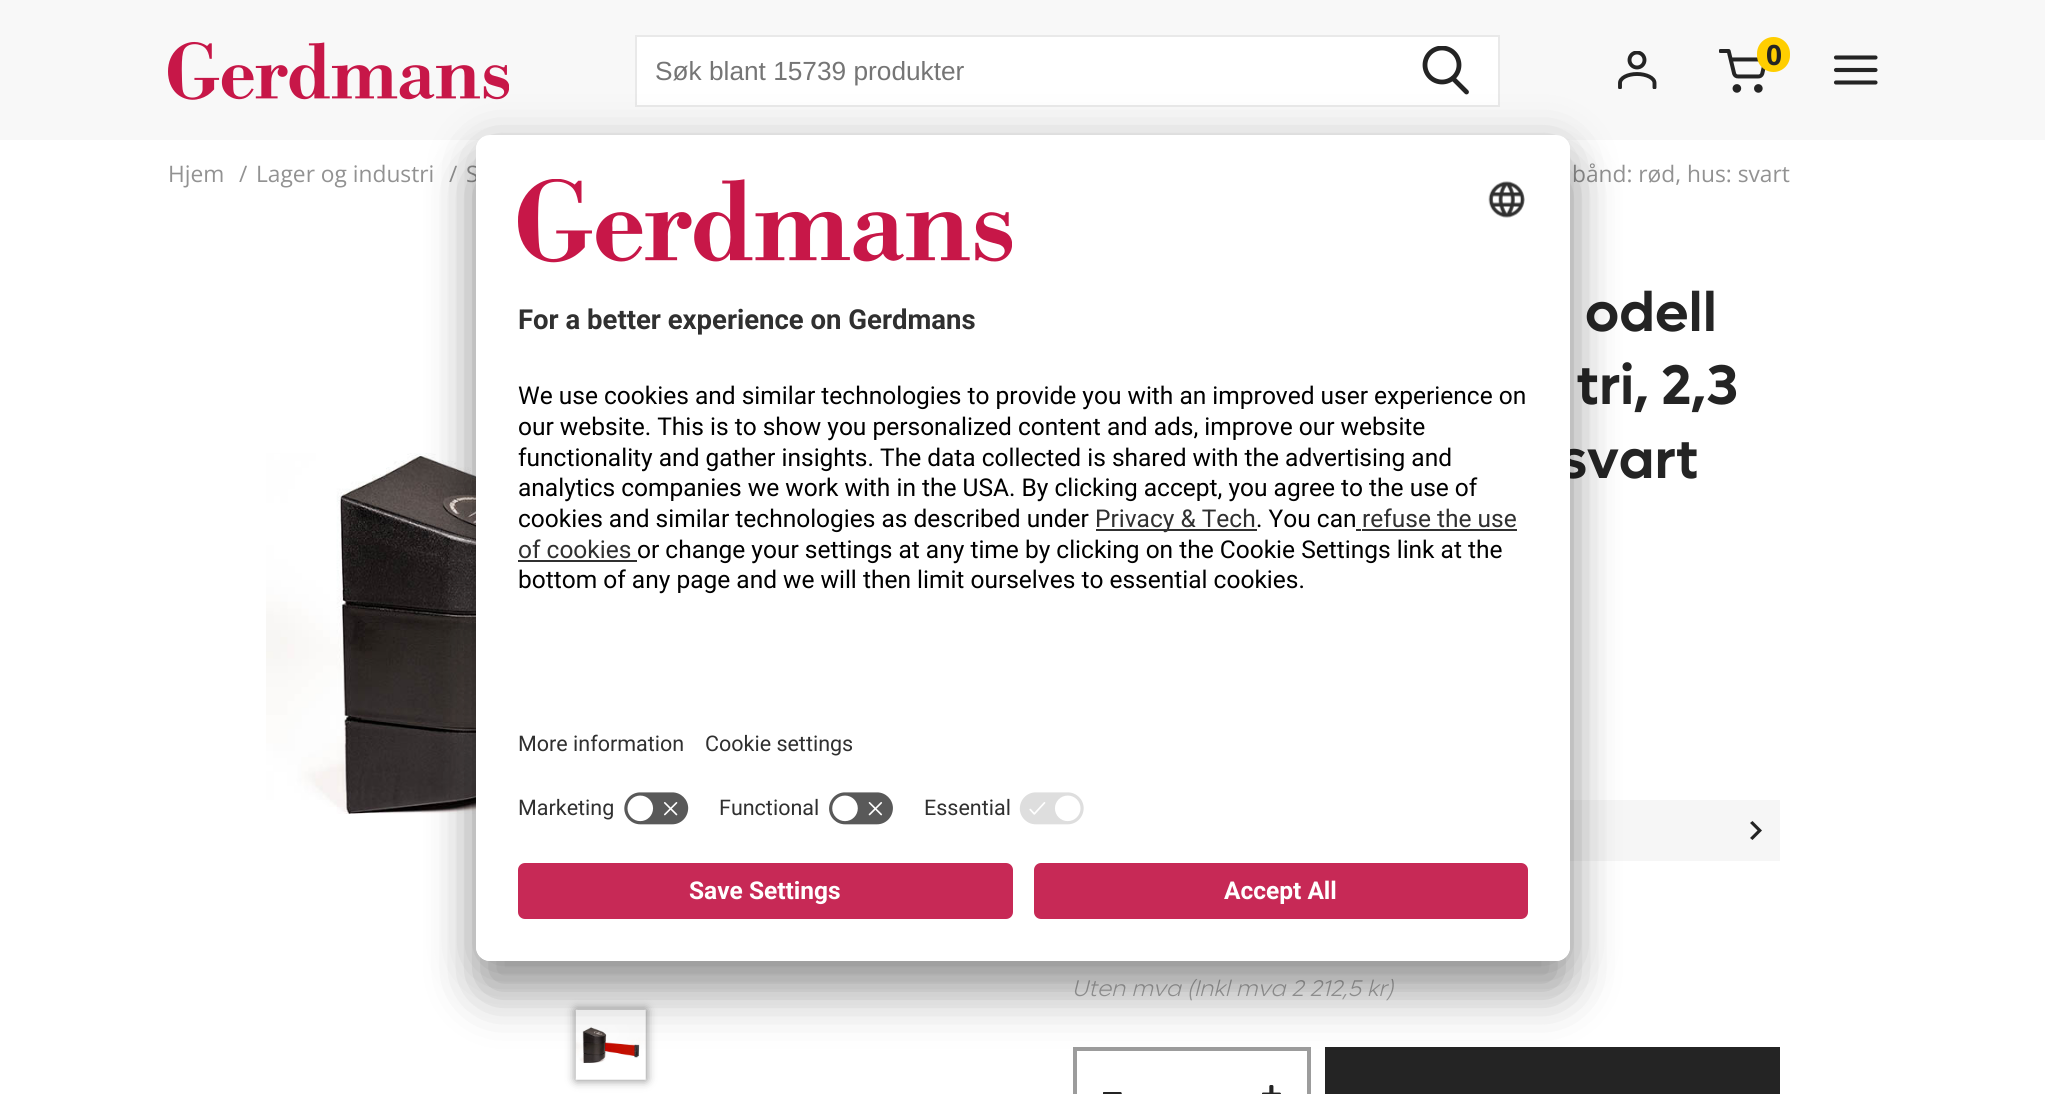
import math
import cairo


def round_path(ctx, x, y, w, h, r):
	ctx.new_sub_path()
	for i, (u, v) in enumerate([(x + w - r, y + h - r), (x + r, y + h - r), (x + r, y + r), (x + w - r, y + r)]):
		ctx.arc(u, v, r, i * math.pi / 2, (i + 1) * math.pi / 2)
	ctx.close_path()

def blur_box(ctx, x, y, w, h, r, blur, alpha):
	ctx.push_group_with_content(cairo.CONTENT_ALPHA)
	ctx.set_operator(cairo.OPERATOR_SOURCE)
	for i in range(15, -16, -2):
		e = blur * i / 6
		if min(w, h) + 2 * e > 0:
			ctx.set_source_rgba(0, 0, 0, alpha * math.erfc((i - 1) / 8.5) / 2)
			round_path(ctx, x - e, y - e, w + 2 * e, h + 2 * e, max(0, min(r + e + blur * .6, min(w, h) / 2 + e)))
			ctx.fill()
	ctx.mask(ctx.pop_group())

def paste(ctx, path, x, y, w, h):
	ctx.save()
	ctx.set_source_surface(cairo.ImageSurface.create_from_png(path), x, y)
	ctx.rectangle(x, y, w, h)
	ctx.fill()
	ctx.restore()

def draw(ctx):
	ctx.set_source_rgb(1, 1, 1)
	ctx.paint()
	ctx.set_source_rgb(0.969, 0.969, 0.969)
	ctx.rectangle(0, 0, 2045, 140)
	ctx.fill()
	paste(ctx, 'media/1.png', 168, 41, 341, 59)
	ctx.save()
	ctx.rectangle(1615, 51, 44, 38)
	ctx.clip()
	ctx.new_path()
	ctx.move_to(1654.5, 87.5)
	ctx.line_to(1654.5, 83)
	ctx.curve_to(1654.5, 78, 1646.5, 74, 1637, 74)
	ctx.curve_to(1627.5, 74, 1620, 78, 1620, 83)
	ctx.line_to(1620, 87.5)
	ctx.set_source_rgb(0.141, 0.141, 0.141)
	ctx.set_line_width(3.9)
	ctx.set_line_cap(cairo.LINE_CAP_ROUND)
	ctx.set_line_join(cairo.LINE_JOIN_ROUND)
	ctx.stroke()
	ctx.arc(1637, 60, 7.5, 0, 2 * math.pi)
	ctx.set_line_cap(cairo.LINE_CAP_BUTT)
	ctx.set_line_join(cairo.LINE_JOIN_MITER)
	ctx.stroke()
	ctx.restore()
	paste(ctx, 'media/2.png', 1719, 49, 47, 44)
	ctx.set_source_rgb(1, 0.808, 0)
	round_path(ctx, 1757, 37, 33, 35, 16.5)
	ctx.fill()
	ctx.select_font_face('Open Sans', cairo.FONT_SLANT_NORMAL, cairo.FONT_WEIGHT_BOLD)
	ctx.set_font_size(28)
	ctx.set_source_rgb(0.141, 0.141, 0.141)
	ctx.move_to(1766, 65)
	ctx.show_text('0')
	ctx.new_path()
	ctx.move_to(1836, 57.5)
	ctx.line_to(1875.5, 57.5)
	ctx.move_to(1836, 70)
	ctx.line_to(1875.5, 70)
	ctx.move_to(1836, 82.5)
	ctx.line_to(1875.5, 82.5)
	ctx.set_line_width(4.1)
	ctx.set_line_cap(cairo.LINE_CAP_ROUND)
	ctx.set_line_join(cairo.LINE_JOIN_ROUND)
	ctx.stroke()
	ctx.set_source_rgb(1, 1, 1)
	ctx.rectangle(636, 36, 863, 70)
	ctx.fill_preserve()
	ctx.set_source_rgb(0.914, 0.914, 0.914)
	ctx.set_line_width(2)
	ctx.set_line_cap(cairo.LINE_CAP_BUTT)
	ctx.set_line_join(cairo.LINE_JOIN_MITER)
	ctx.stroke()
	ctx.select_font_face('Liberation Sans')
	ctx.set_font_size(26.25)
	ctx.set_source_rgb(0.459, 0.459, 0.459)
	ctx.move_to(655, 80)
	ctx.show_text('Søk blant 15739 produkter')
	ctx.save()
	ctx.rectangle(1421, 46, 49, 49)
	ctx.clip()
	ctx.arc(1442, 65, 17, 0, 2 * math.pi)
	ctx.set_source_rgb(0.141, 0.141, 0.141)
	ctx.set_line_width(4.8)
	ctx.stroke()
	ctx.restore()
	ctx.new_path()
	ctx.move_to(1453, 78.5)
	ctx.line_to(1466.5, 92)
	ctx.set_source_rgb(0.141, 0.141, 0.141)
	ctx.set_line_width(4.8)
	ctx.set_line_cap(cairo.LINE_CAP_ROUND)
	ctx.set_line_join(cairo.LINE_JOIN_ROUND)
	ctx.stroke()
	ctx.select_font_face('Open Sans')
	ctx.set_font_size(22.75)
	ctx.set_source_rgb(0.573, 0.573, 0.573)
	for x, y, s in [
		(168, 182, 'Hjem'),
		(239, 182, '/'),
		(256, 182, 'Lager og industri'),
		(449, 182, '/'),
		(466, 182, 'S'),
		(1572, 182, 'bånd: rød, hus: svart'),
	]:
		ctx.move_to(x, y)
		ctx.show_text(s)
	paste(ctx, 'media/3.png', 266, 453, 210, 361)
	ctx.set_source_rgb(0, 0, 0)
	blur_box(ctx, 576, 1010, 70, 70, 0, 5, 0.5)
	paste(ctx, 'media/4.png', 575, 1009, 71, 71)
	ctx.select_font_face('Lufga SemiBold')
	ctx.set_font_size(56)
	ctx.set_source_rgb(0.141, 0.141, 0.141)
	for x, y, s in [
		(1585, 331, 'odell'),
		(1576, 404, 'tri, 2,3'),
		(1560, 478, 'svart'),
	]:
		ctx.move_to(x, y)
		ctx.show_text(s)
	ctx.set_source_rgb(0.961, 0.961, 0.961)
	ctx.rectangle(1570, 800, 210, 61)
	ctx.fill()
	ctx.set_source_rgb(0.141, 0.141, 0.141)
	ctx.new_path()
	ctx.move_to(1752.5, 821)
	ctx.line_to(1750, 823)
	ctx.line_to(1757.5, 830.5)
	ctx.line_to(1750, 838)
	ctx.line_to(1752.5, 840)
	ctx.line_to(1762, 830.5)
	ctx.close_path()
	ctx.fill()
	ctx.select_font_face('Lufga Light', cairo.FONT_SLANT_ITALIC)
	ctx.set_font_size(22.75)
	ctx.set_source_rgb(0.675, 0.675, 0.675)
	ctx.move_to(1072, 996)
	ctx.show_text('Uten mva (Inkl mva 2 212,5 kr)')
	ctx.rectangle(1075, 1049, 234, 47)
	ctx.set_source_rgb(0.612, 0.612, 0.612)
	ctx.set_line_width(4)
	ctx.set_line_cap(cairo.LINE_CAP_BUTT)
	ctx.set_line_join(cairo.LINE_JOIN_MITER)
	ctx.stroke()
	paste(ctx, 'media/5.png', 1103, 1092, 19, 2)
	paste(ctx, 'media/6.png', 1262, 1085, 19, 9)
	ctx.set_source_rgb(0.141, 0.141, 0.141)
	ctx.rectangle(1325, 1047, 455, 47)
	ctx.fill()
	ctx.set_source_rgb(0, 0, 0)
	blur_box(ctx, 476, 170, 1094, 826, 14, 24.5, 0.3)
	blur_box(ctx, 476, 144, 1094, 826, 14, 23, 0.22)
	ctx.set_source_rgb(1, 1, 1)
	round_path(ctx, 476, 135, 1094, 826, 14)
	ctx.fill()
	ctx.save()
	round_path(ctx, 476, 135, 1094, 826, 14)
	ctx.clip()
	ctx.new_path()
	ctx.move_to(490, 135)
	ctx.line_to(1556, 135)
	ctx.curve_to(1563.5, 135, 1570, 141.5, 1570, 149)
	ctx.line_to(1570, 849)
	ctx.line_to(476, 849)
	ctx.line_to(476, 149)
	ctx.curve_to(476, 141.5, 482.5, 135, 490, 135)
	ctx.close_path()
	ctx.clip()
	ctx.rectangle(476, 137, 1094, 712)
	ctx.fill()
	ctx.restore()
	paste(ctx, 'media/7.png', 518, 179, 494, 84)
	paste(ctx, 'media/8.png', 1488, 181, 37, 37)
	ctx.select_font_face('Roboto', cairo.FONT_SLANT_NORMAL, cairo.FONT_WEIGHT_BOLD)
	ctx.set_font_size(27.5)
	ctx.set_source_rgb(0.188, 0.188, 0.188)
	ctx.move_to(518, 329)
	ctx.show_text('For a better experience on Gerdmans')
	ctx.select_font_face('Roboto')
	ctx.set_font_size(24.5)
	ctx.set_source_rgb(0, 0, 0)
	for x, y, s in [
		(518, 404, 'We use cookies and similar technologies to provide you with an improved user experience on'),
		(518, 435, 'our website. This is to show you personalized content and ads, improve our website'),
		(518, 466, 'functionality and gather insights. The data collected is shared with the advertising and'),
		(518, 496, 'analytics companies we work with in the USA. By clicking accept, you agree to the use of'),
		(518, 527, 'cookies and similar technologies as described under'),
	]:
		ctx.move_to(x, y)
		ctx.show_text(s)
	ctx.set_source_rgb(0.188, 0.188, 0.188)
	ctx.rectangle(1096, 529, 161, 2)
	ctx.fill()
	ctx.move_to(1095, 527)
	ctx.show_text('Privacy & Tech')
	ctx.set_source_rgb(0, 0, 0)
	ctx.move_to(1256, 527)
	ctx.show_text('. You can')
	ctx.set_source_rgb(0.188, 0.188, 0.188)
	ctx.move_to(1362, 527)
	ctx.show_text('refuse the use')
	ctx.rectangle(1362, 529, 155, 2)
	ctx.fill()
	ctx.rectangle(1356, 529, 5, 2)
	ctx.fill()
	ctx.move_to(518, 558)
	ctx.show_text('of cookies')
	ctx.rectangle(518, 560, 119, 2)
	ctx.fill()
	ctx.set_source_rgb(0, 0, 0)
	ctx.move_to(637, 558)
	ctx.show_text('or change your settings at any time by clicking on the Cookie Settings link at the')
	ctx.move_to(518, 588)
	ctx.show_text('bottom of any page and we will then limit ourselves to essential cookies.')
	ctx.set_font_size(21.5)
	ctx.set_source_rgb(0.188, 0.188, 0.188)
	for x, y, s in [
		(518, 751, 'More information'),
		(705, 751, 'Cookie settings'),
		(518, 815, 'Marketing'),
	]:
		ctx.move_to(x, y)
		ctx.show_text(s)
	paste(ctx, 'media/9.png', 624, 792, 65, 33)
	ctx.move_to(719, 815)
	ctx.show_text('Functional')
	paste(ctx, 'media/10.png', 829, 792, 64, 33)
	ctx.move_to(924, 815)
	ctx.show_text('Essential')
	paste(ctx, 'media/11.png', 1019, 792, 65, 33)
	ctx.set_source_rgb(1, 1, 1)
	ctx.new_path()
	ctx.move_to(476, 849)
	ctx.line_to(1570, 849)
	ctx.line_to(1570, 947)
	ctx.curve_to(1570, 954.5, 1563.5, 961, 1556, 961)
	ctx.line_to(490, 961)
	ctx.curve_to(482.5, 961, 476, 954.5, 476, 947)
	ctx.close_path()
	ctx.fill()
	ctx.set_source_rgb(0.78, 0.161, 0.337)
	round_path(ctx, 518, 863, 495, 56, 7)
	ctx.fill()
	ctx.select_font_face('Roboto', cairo.FONT_SLANT_NORMAL, cairo.FONT_WEIGHT_BOLD)
	ctx.set_font_size(24.5)
	ctx.set_source_rgb(1, 1, 1)
	ctx.move_to(689, 899)
	ctx.show_text('Save Settings')
	ctx.set_source_rgb(0.78, 0.161, 0.337)
	round_path(ctx, 1034, 863, 494, 56, 7)
	ctx.fill()
	ctx.set_source_rgb(1, 1, 1)
	ctx.move_to(1224, 899)
	ctx.show_text('Accept All')


surface = cairo.ImageSurface(cairo.FORMAT_RGB24, 2045, 1094)
ctx = cairo.Context(surface)
options = cairo.FontOptions()
options.set_hint_metrics(cairo.HINT_METRICS_OFF)
options.set_hint_style(cairo.HINT_STYLE_NONE)
ctx.set_font_options(options)
ctx.set_miter_limit(4)
draw(ctx)
surface.write_to_png('image.png')
